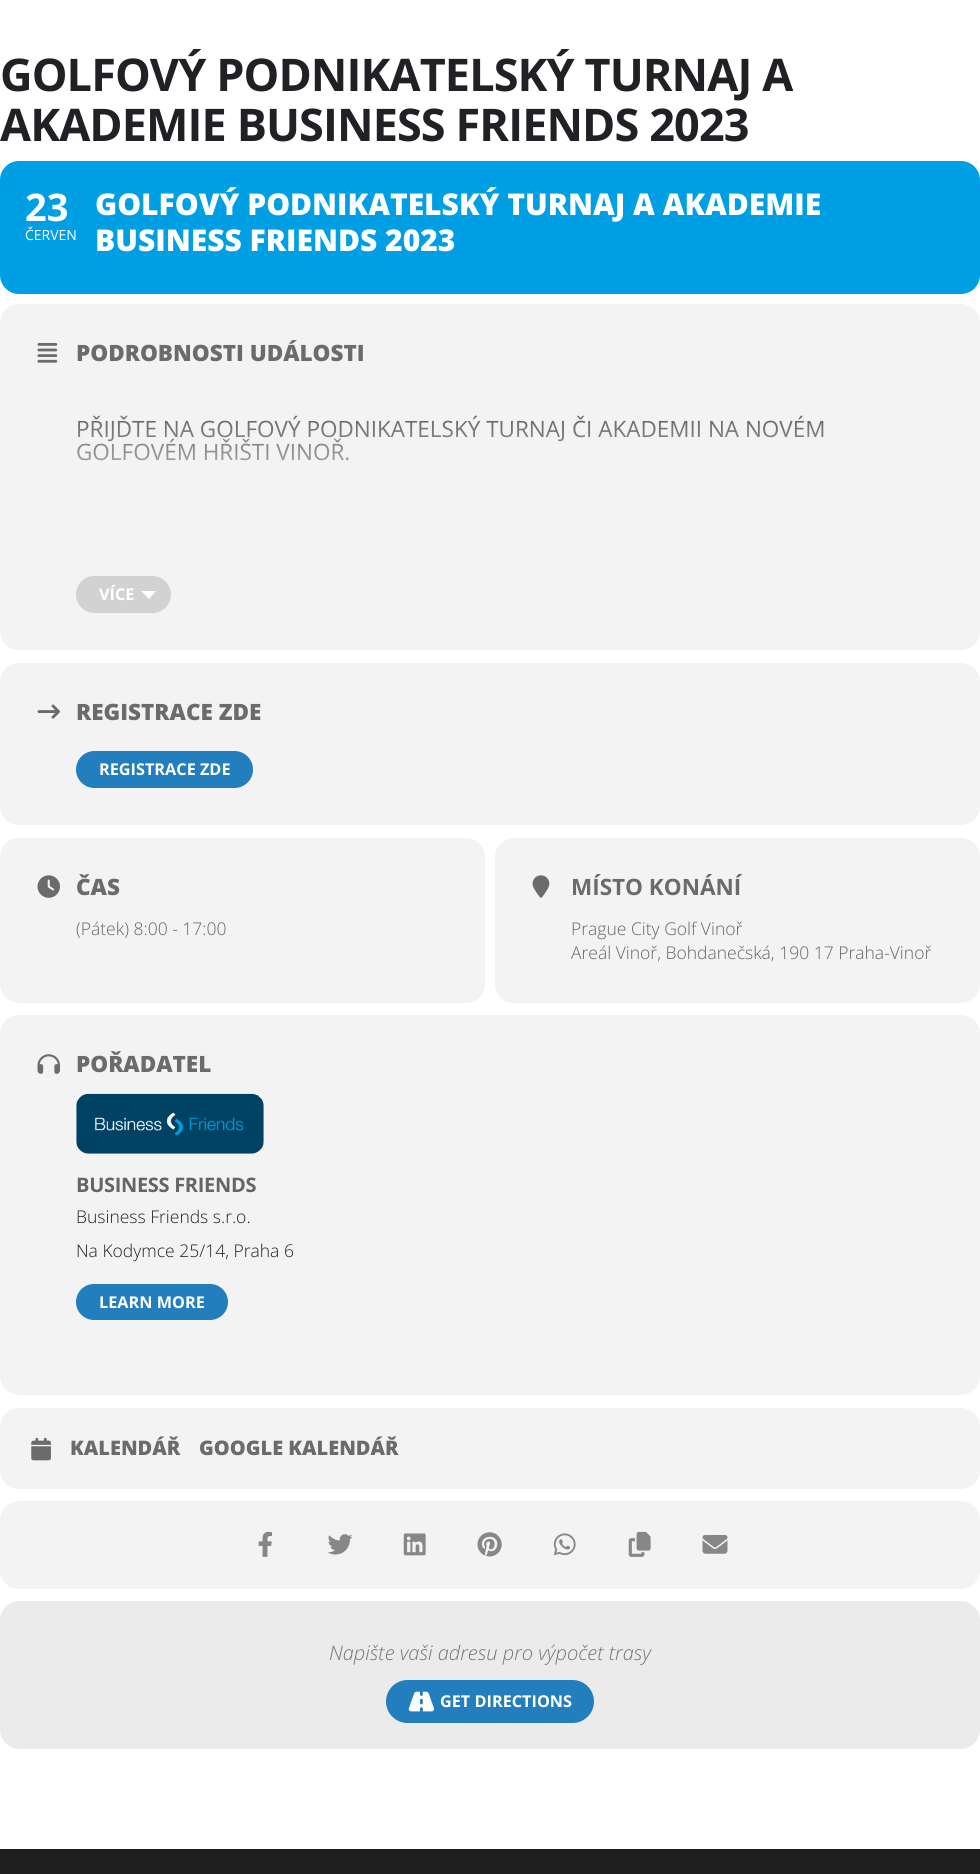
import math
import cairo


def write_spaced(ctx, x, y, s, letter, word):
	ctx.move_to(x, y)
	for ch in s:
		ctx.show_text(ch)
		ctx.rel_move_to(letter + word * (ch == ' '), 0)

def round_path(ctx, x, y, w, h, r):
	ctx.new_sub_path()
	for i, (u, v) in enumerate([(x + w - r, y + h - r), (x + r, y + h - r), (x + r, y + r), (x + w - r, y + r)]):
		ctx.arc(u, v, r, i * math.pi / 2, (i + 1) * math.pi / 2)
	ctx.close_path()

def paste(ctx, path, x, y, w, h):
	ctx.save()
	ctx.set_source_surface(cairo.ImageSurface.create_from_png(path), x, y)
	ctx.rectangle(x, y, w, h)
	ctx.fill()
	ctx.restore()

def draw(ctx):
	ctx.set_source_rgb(1, 1, 1)
	ctx.paint()
	ctx.select_font_face('Open Sans', cairo.FONT_SLANT_NORMAL, cairo.FONT_WEIGHT_BOLD)
	ctx.set_font_size(45)
	ctx.set_source_rgb(0.125, 0.129, 0.141)
	write_spaced(ctx, 0, 91, 'GOLFOVÝ PODNIKATELSKÝ TURNAJ A', -0.9, 0)
	write_spaced(ctx, 0, 141, 'AKADEMIE BUSINESS FRIENDS 2023', -0.9, 0)
	ctx.set_source_rgb(0, 0.624, 0.89)
	round_path(ctx, 0, 161, 980, 133, 19)
	ctx.fill()
	ctx.set_font_size(38)
	ctx.set_source_rgb(1, 1, 1)
	ctx.move_to(25, 221)
	ctx.show_text('23')
	ctx.select_font_face('Open Sans')
	ctx.set_font_size(14)
	ctx.move_to(25, 240)
	ctx.show_text('ČERVEN')
	ctx.select_font_face('Open Sans ExtraBold')
	ctx.set_font_size(30)
	ctx.move_to(95, 215)
	ctx.show_text('GOLFOVÝ PODNIKATELSKÝ TURNAJ A AKADEMIE')
	ctx.move_to(95, 251)
	ctx.show_text('BUSINESS FRIENDS 2023')
	ctx.set_source_rgb(0.953, 0.953, 0.953)
	round_path(ctx, 0, 304, 980, 346, 19)
	ctx.fill()
	paste(ctx, 'media/1.png', 37, 343, 21, 20)
	ctx.set_font_size(22.5)
	ctx.set_source_rgb(0.42, 0.42, 0.42)
	ctx.move_to(76, 361)
	ctx.show_text('PODROBNOSTI UDÁLOSTI')
	ctx.select_font_face('Open Sans')
	ctx.move_to(76, 437)
	ctx.show_text('PŘIJĎTE NA GOLFOVÝ PODNIKATELSKÝ TURNAJ ČI AKADEMII NA NOVÉM')
	ctx.move_to(76, 460)
	ctx.show_text('GOLFOVÉM HŘIŠTI VINOŘ.')
	gradient = cairo.LinearGradient(509, 570, 509, 383)
	gradient.add_color_stop_rgba(0.2, 0.953, 0.953, 0.953, 1)
	gradient.add_color_stop_rgba(0.8, 0.953, 0.953, 0.953, 0)
	ctx.set_source(gradient)
	ctx.rectangle(77, 423, 747, 38)
	ctx.fill()
	ctx.set_source_rgb(0.824, 0.824, 0.824)
	round_path(ctx, 76, 576, 95, 37, 18.5)
	ctx.fill()
	ctx.select_font_face('Open Sans', cairo.FONT_SLANT_NORMAL, cairo.FONT_WEIGHT_BOLD)
	ctx.set_font_size(16.25)
	ctx.set_source_rgb(1, 1, 1)
	ctx.move_to(99, 600)
	ctx.show_text('VÍCE')
	ctx.new_path()
	ctx.move_to(141, 591)
	ctx.line_to(156, 591)
	ctx.line_to(149, 599)
	ctx.close_path()
	ctx.fill()
	ctx.set_source_rgb(0.953, 0.953, 0.953)
	round_path(ctx, 0, 663, 980, 162, 19)
	ctx.fill()
	paste(ctx, 'media/2.png', 37, 704, 23, 15)
	ctx.select_font_face('Open Sans ExtraBold')
	ctx.set_font_size(22.5)
	ctx.set_source_rgb(0.42, 0.42, 0.42)
	ctx.move_to(76, 720)
	ctx.show_text('REGISTRACE ZDE')
	ctx.set_source_rgb(0.137, 0.494, 0.741)
	round_path(ctx, 76, 751, 177, 37, 18.5)
	ctx.fill()
	ctx.select_font_face('Open Sans', cairo.FONT_SLANT_NORMAL, cairo.FONT_WEIGHT_BOLD)
	ctx.set_font_size(16.25)
	ctx.set_source_rgb(1, 1, 1)
	ctx.move_to(99, 775)
	ctx.show_text('REGISTRACE ZDE')
	ctx.set_source_rgb(0.953, 0.953, 0.953)
	round_path(ctx, 0, 838, 485, 165, 19)
	ctx.fill()
	paste(ctx, 'media/3.png', 37, 875, 23, 23)
	ctx.select_font_face('Open Sans ExtraBold')
	ctx.set_font_size(22.5)
	ctx.set_source_rgb(0.42, 0.42, 0.42)
	ctx.move_to(76, 895)
	ctx.show_text('ČAS')
	ctx.select_font_face('Open Sans Light')
	ctx.set_font_size(17.5)
	ctx.set_source_rgb(0.396, 0.396, 0.396)
	ctx.move_to(76, 935)
	ctx.show_text('(Pátek) 8:00 - 17:00')
	ctx.set_source_rgb(0.953, 0.953, 0.953)
	round_path(ctx, 495, 838, 485, 165, 19)
	ctx.fill()
	paste(ctx, 'media/4.png', 532, 875, 18, 23)
	ctx.select_font_face('Open Sans', cairo.FONT_SLANT_NORMAL, cairo.FONT_WEIGHT_BOLD)
	ctx.set_font_size(22.5)
	ctx.set_source_rgb(0.42, 0.42, 0.42)
	ctx.move_to(571, 895)
	ctx.show_text('MÍSTO KONÁNÍ')
	ctx.select_font_face('Open Sans Light')
	ctx.set_font_size(17.5)
	ctx.set_source_rgb(0.396, 0.396, 0.396)
	ctx.move_to(571, 935)
	ctx.show_text('Prague City Golf Vinoř')
	ctx.move_to(571, 959)
	ctx.show_text('Areál Vinoř, Bohdanečská, 190 17 Praha-Vinoř')
	ctx.set_source_rgb(0.953, 0.953, 0.953)
	round_path(ctx, 0, 1015, 980, 380, 19)
	ctx.fill()
	paste(ctx, 'media/5.png', 37, 1054, 23, 20)
	ctx.select_font_face('Open Sans ExtraBold')
	ctx.set_font_size(22.5)
	ctx.set_source_rgb(0.42, 0.42, 0.42)
	ctx.move_to(76, 1072)
	ctx.show_text('POŘADATEL')
	paste(ctx, 'media/6.png', 76, 1093, 188, 61)
	ctx.select_font_face('Open Sans', cairo.FONT_SLANT_NORMAL, cairo.FONT_WEIGHT_BOLD)
	ctx.set_font_size(20)
	ctx.set_source_rgb(0.396, 0.396, 0.396)
	write_spaced(ctx, 76, 1192, 'BUSINESS FRIENDS', -0.3, 0)
	ctx.select_font_face('Open Sans Light')
	ctx.set_font_size(17.5)
	ctx.set_source_rgb(0.125, 0.129, 0.141)
	ctx.move_to(76, 1223)
	ctx.show_text('Business Friends s.r.o.')
	ctx.move_to(76, 1257)
	ctx.show_text('Na Kodymce 25/14, Praha 6')
	ctx.set_source_rgb(0.137, 0.494, 0.741)
	round_path(ctx, 76, 1284, 152, 36, 18)
	ctx.fill()
	ctx.select_font_face('Open Sans', cairo.FONT_SLANT_NORMAL, cairo.FONT_WEIGHT_BOLD)
	ctx.set_font_size(16.25)
	ctx.set_source_rgb(1, 1, 1)
	ctx.move_to(99, 1308)
	ctx.show_text('LEARN MORE')
	ctx.set_source_rgb(0.953, 0.953, 0.953)
	round_path(ctx, 0, 1408, 980, 81, 19)
	ctx.fill()
	paste(ctx, 'media/7.png', 31, 1437, 20, 24)
	ctx.select_font_face('Open Sans ExtraBold')
	ctx.set_font_size(20)
	ctx.set_source_rgb(0.42, 0.42, 0.42)
	ctx.move_to(70, 1455)
	ctx.show_text('KALENDÁŘ')
	ctx.move_to(199, 1455)
	ctx.show_text('GOOGLE KALENDÁŘ')
	ctx.set_source_rgb(0.953, 0.953, 0.953)
	round_path(ctx, 0, 1501, 980, 88, 19)
	ctx.fill()
	paste(ctx, 'media/8.png', 258, 1531, 14, 26)
	paste(ctx, 'media/9.png', 327, 1534, 26, 21)
	paste(ctx, 'media/10.png', 403, 1533, 23, 23)
	paste(ctx, 'media/11.png', 477, 1532, 25, 25)
	paste(ctx, 'media/12.png', 553, 1533, 23, 23)
	paste(ctx, 'media/13.png', 628, 1531, 23, 26)
	paste(ctx, 'media/14.png', 702, 1535, 26, 19)
	ctx.set_source_rgb(0.918, 0.918, 0.918)
	ctx.new_path()
	ctx.move_to(19, 1601)
	ctx.line_to(961, 1601)
	ctx.curve_to(971, 1601, 980, 1610, 980, 1620)
	ctx.line_to(980, 1730)
	ctx.curve_to(980, 1740, 971, 1749, 961, 1749)
	ctx.line_to(19, 1749)
	ctx.curve_to(9, 1749, 0, 1740, 0, 1730)
	ctx.line_to(0, 1620)
	ctx.curve_to(0, 1610, 9, 1601, 19, 1601)
	ctx.close_path()
	ctx.fill()
	ctx.select_font_face('Open Sans Light', cairo.FONT_SLANT_ITALIC)
	ctx.set_source_rgb(0.459, 0.459, 0.459)
	ctx.move_to(329, 1660)
	ctx.show_text('Napište vaši adresu pro výpočet trasy')
	ctx.set_source_rgb(0.137, 0.494, 0.741)
	round_path(ctx, 386, 1680, 208, 43, 21.5)
	ctx.fill()
	paste(ctx, 'media/15.png', 408, 1691, 26, 21)
	ctx.select_font_face('Open Sans', cairo.FONT_SLANT_NORMAL, cairo.FONT_WEIGHT_BOLD)
	ctx.set_font_size(16.25)
	ctx.set_source_rgb(1, 1, 1)
	ctx.move_to(440, 1707)
	ctx.show_text('GET DIRECTIONS')
	ctx.set_source_rgb(0.118, 0.118, 0.118)
	ctx.rectangle(0, 1849, 980, 25)
	ctx.fill()


surface = cairo.ImageSurface(cairo.FORMAT_RGB24, 980, 1874)
ctx = cairo.Context(surface)
options = cairo.FontOptions()
options.set_hint_metrics(cairo.HINT_METRICS_OFF)
options.set_hint_style(cairo.HINT_STYLE_NONE)
ctx.set_font_options(options)
ctx.set_miter_limit(4)
draw(ctx)
surface.write_to_png('image.png')
